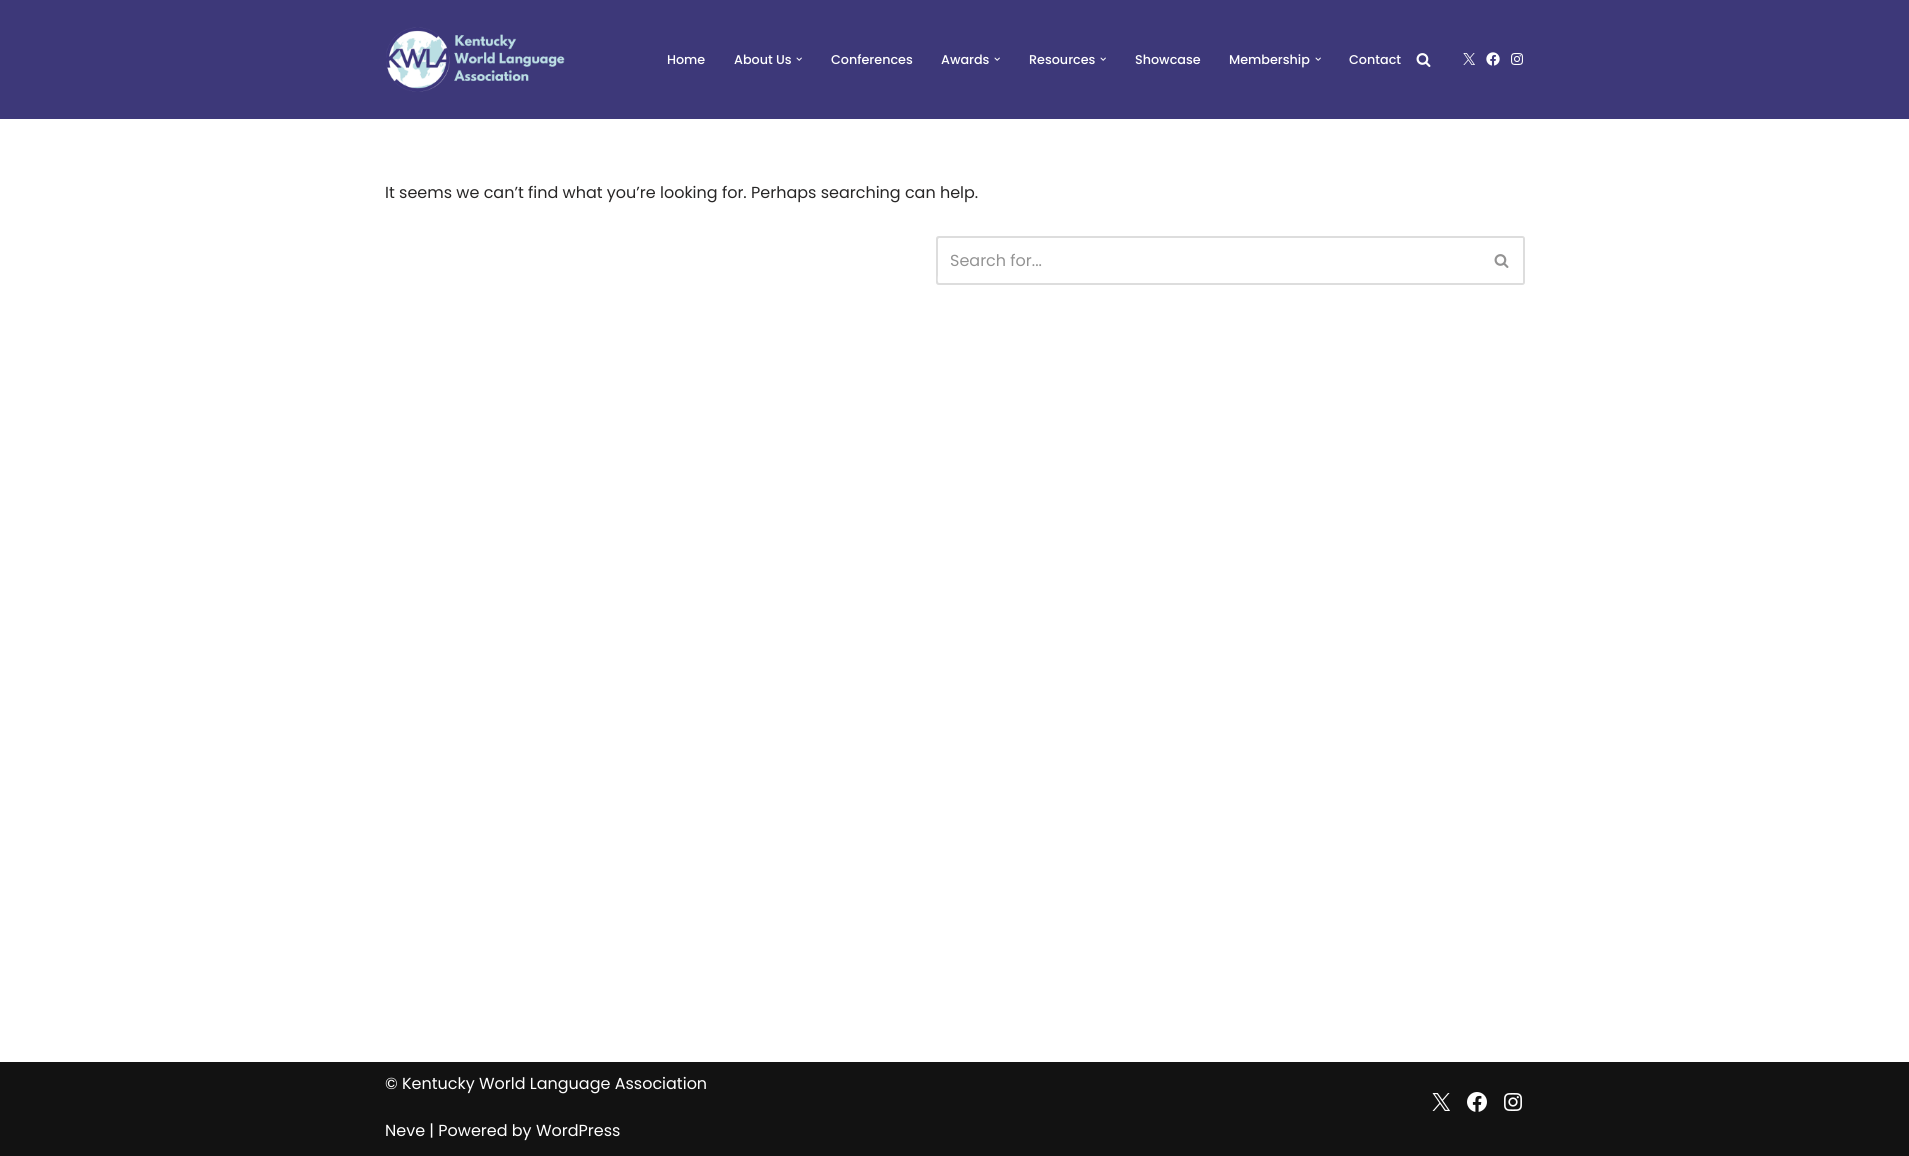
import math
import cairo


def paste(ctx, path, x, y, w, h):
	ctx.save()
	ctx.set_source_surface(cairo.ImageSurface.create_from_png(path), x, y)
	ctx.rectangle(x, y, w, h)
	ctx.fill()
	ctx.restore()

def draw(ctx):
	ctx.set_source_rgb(1, 1, 1)
	ctx.paint()
	ctx.set_source_rgb(0.239, 0.22, 0.475)
	ctx.rectangle(0, 0, 1909, 119)
	ctx.fill()
	paste(ctx, 'media/1.png', 386, 27, 179, 65)
	ctx.select_font_face('Poppins Medium')
	ctx.set_font_size(12.75)
	ctx.set_source_rgb(1, 1, 1)
	ctx.move_to(667, 64)
	ctx.show_text('Home')
	ctx.move_to(734, 64)
	ctx.show_text('About Us')
	paste(ctx, 'media/2.png', 796, 57, 6, 4)
	ctx.move_to(831, 64)
	ctx.show_text('Conferences')
	ctx.move_to(941, 64)
	ctx.show_text('Awards')
	paste(ctx, 'media/2.png', 994, 57, 6, 4)
	ctx.move_to(1029, 64)
	ctx.show_text('Resources')
	paste(ctx, 'media/2.png', 1100, 57, 6, 4)
	ctx.move_to(1135, 64)
	ctx.show_text('Showcase')
	ctx.move_to(1229, 64)
	ctx.show_text('Membership')
	paste(ctx, 'media/2.png', 1315, 57, 6, 4)
	ctx.move_to(1349, 64)
	ctx.show_text('Contact')
	paste(ctx, 'media/3.png', 1416, 53, 15, 14)
	paste(ctx, 'media/4.png', 1463, 53, 12, 12)
	paste(ctx, 'media/5.png', 1486, 52, 14, 14)
	paste(ctx, 'media/6.png', 1511, 53, 12, 12)
	ctx.select_font_face('Poppins')
	ctx.set_font_size(16)
	ctx.set_source_rgb(0.153, 0.149, 0.149)
	ctx.move_to(385, 198)
	ctx.show_text('It seems we can’t find what you’re looking for. Perhaps searching can help.')
	ctx.set_source_rgb(0.867, 0.867, 0.867)
	ctx.set_fill_rule(cairo.FILL_RULE_EVEN_ODD)
	ctx.new_path()
	ctx.move_to(939, 236)
	ctx.line_to(1480, 236)
	ctx.line_to(1480, 285)
	ctx.line_to(939, 285)
	ctx.curve_to(937, 285, 936, 284, 936, 282)
	ctx.line_to(936, 239)
	ctx.curve_to(936, 237, 937, 236, 939, 236)
	ctx.close_path()
	ctx.move_to(939, 238)
	ctx.line_to(1480, 238)
	ctx.line_to(1480, 283)
	ctx.line_to(939, 283)
	ctx.curve_to(937, 283, 938, 276, 938, 275)
	ctx.line_to(938, 239)
	ctx.close_path()
	ctx.fill()
	ctx.set_source_rgb(0.576, 0.576, 0.576)
	ctx.move_to(950, 266)
	ctx.show_text('Search for...')
	ctx.set_source_rgb(0.867, 0.867, 0.867)
	ctx.new_path()
	ctx.move_to(1480, 236)
	ctx.line_to(1522, 236)
	ctx.curve_to(1524, 236, 1525, 237, 1525, 239)
	ctx.line_to(1525, 282)
	ctx.curve_to(1525, 284, 1524, 285, 1522, 285)
	ctx.line_to(1480, 285)
	ctx.close_path()
	ctx.move_to(1480, 238)
	ctx.line_to(1522, 238)
	ctx.curve_to(1523, 238, 1523, 238, 1523, 239)
	ctx.line_to(1523, 282)
	ctx.curve_to(1523, 283, 1523, 283, 1522, 283)
	ctx.line_to(1480, 283)
	ctx.close_path()
	ctx.fill()
	paste(ctx, 'media/7.png', 1494, 254, 15, 14)
	ctx.set_source_rgb(0.071, 0.071, 0.071)
	ctx.rectangle(0, 1062, 1909, 94)
	ctx.fill()
	ctx.set_source_rgb(1, 1, 1)
	ctx.move_to(385, 1089)
	ctx.show_text('© Kentucky World Language Association')
	ctx.move_to(385, 1136)
	ctx.show_text('Neve | Powered by WordPress')
	paste(ctx, 'media/8.png', 1432, 1093, 18, 18)
	paste(ctx, 'media/9.png', 1467, 1092, 20, 20)
	paste(ctx, 'media/10.png', 1504, 1093, 18, 18)


surface = cairo.ImageSurface(cairo.FORMAT_RGB24, 1909, 1156)
ctx = cairo.Context(surface)
options = cairo.FontOptions()
options.set_hint_metrics(cairo.HINT_METRICS_OFF)
options.set_hint_style(cairo.HINT_STYLE_NONE)
ctx.set_font_options(options)
ctx.set_miter_limit(4)
draw(ctx)
surface.write_to_png('image.png')
